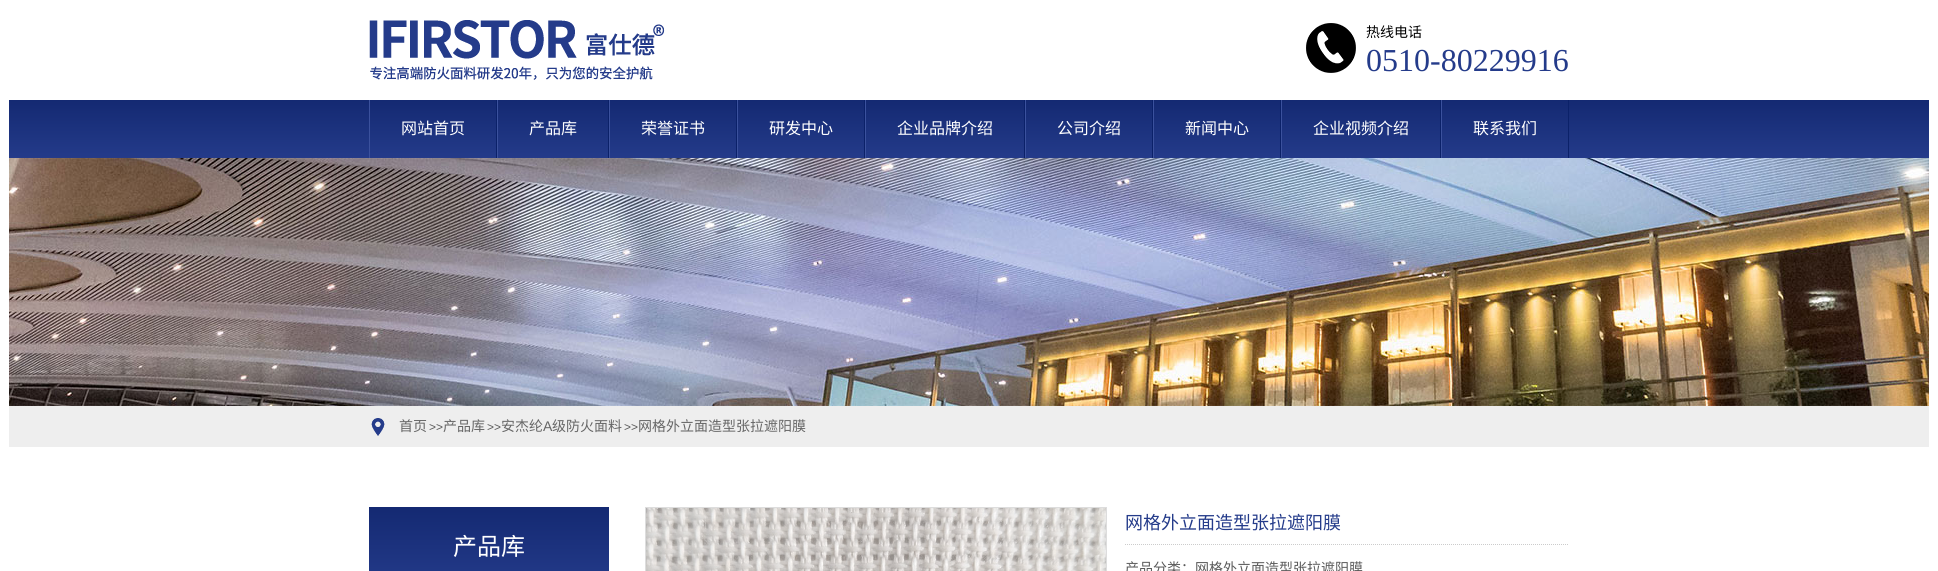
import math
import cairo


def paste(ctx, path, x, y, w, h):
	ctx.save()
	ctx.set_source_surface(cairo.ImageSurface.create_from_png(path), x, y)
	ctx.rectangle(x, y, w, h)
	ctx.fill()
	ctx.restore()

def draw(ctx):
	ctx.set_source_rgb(1, 1, 1)
	ctx.paint()
	paste(ctx, 'media/1.png', 369, 20, 296, 60)
	paste(ctx, 'media/2.png', 1306, 23, 50, 50)
	ctx.select_font_face('Noto Sans CJK SC')
	ctx.set_font_size(14)
	ctx.set_source_rgb(0, 0, 0)
	ctx.move_to(1366, 37)
	ctx.show_text('热线电话')
	ctx.select_font_face('Liberation Serif')
	ctx.set_font_size(32)
	ctx.set_source_rgb(0.141, 0.231, 0.541)
	ctx.move_to(1366, 71)
	ctx.show_text('0510-80229916')
	gradient = cairo.LinearGradient(969, 158, 969, 100)
	gradient.add_color_stop_rgba(0, 0.141, 0.231, 0.541, 1)
	gradient.add_color_stop_rgba(1, 0.078, 0.161, 0.447, 1)
	ctx.set_source(gradient)
	ctx.rectangle(9, 100, 1920, 58)
	ctx.fill()
	ctx.set_source_rgb(0.043, 0.129, 0.412)
	ctx.rectangle(496, 100, 1, 58)
	ctx.fill()
	ctx.set_source_rgb(0.231, 0.318, 0.616)
	ctx.rectangle(369, 100, 1, 58)
	ctx.fill()
	ctx.select_font_face('Noto Sans CJK SC')
	ctx.set_font_size(16)
	ctx.set_source_rgb(1, 1, 1)
	ctx.move_to(401, 134)
	ctx.show_text('网站首页')
	ctx.set_source_rgb(0.043, 0.129, 0.412)
	ctx.rectangle(608, 100, 1, 58)
	ctx.fill()
	ctx.set_source_rgb(0.231, 0.318, 0.616)
	ctx.rectangle(497, 100, 1, 58)
	ctx.fill()
	ctx.set_source_rgb(1, 1, 1)
	ctx.move_to(529, 134)
	ctx.show_text('产品库')
	ctx.set_source_rgb(0.043, 0.129, 0.412)
	ctx.rectangle(736, 100, 1, 58)
	ctx.fill()
	ctx.set_source_rgb(0.231, 0.318, 0.616)
	ctx.rectangle(609, 100, 1, 58)
	ctx.fill()
	ctx.set_source_rgb(1, 1, 1)
	ctx.move_to(641, 134)
	ctx.show_text('荣誉证书')
	ctx.set_source_rgb(0.043, 0.129, 0.412)
	ctx.rectangle(864, 100, 1, 58)
	ctx.fill()
	ctx.set_source_rgb(0.231, 0.318, 0.616)
	ctx.rectangle(737, 100, 1, 58)
	ctx.fill()
	ctx.set_source_rgb(1, 1, 1)
	ctx.move_to(769, 134)
	ctx.show_text('研发中心')
	ctx.set_source_rgb(0.043, 0.129, 0.412)
	ctx.rectangle(1024, 100, 1, 58)
	ctx.fill()
	ctx.set_source_rgb(0.231, 0.318, 0.616)
	ctx.rectangle(865, 100, 1, 58)
	ctx.fill()
	ctx.set_source_rgb(1, 1, 1)
	ctx.move_to(897, 134)
	ctx.show_text('企业品牌介绍')
	ctx.set_source_rgb(0.043, 0.129, 0.412)
	ctx.rectangle(1152, 100, 1, 58)
	ctx.fill()
	ctx.set_source_rgb(0.231, 0.318, 0.616)
	ctx.rectangle(1025, 100, 1, 58)
	ctx.fill()
	ctx.set_source_rgb(1, 1, 1)
	ctx.move_to(1057, 134)
	ctx.show_text('公司介绍')
	ctx.set_source_rgb(0.043, 0.129, 0.412)
	ctx.rectangle(1280, 100, 1, 58)
	ctx.fill()
	ctx.set_source_rgb(0.231, 0.318, 0.616)
	ctx.rectangle(1153, 100, 1, 58)
	ctx.fill()
	ctx.set_source_rgb(1, 1, 1)
	ctx.move_to(1185, 134)
	ctx.show_text('新闻中心')
	ctx.set_source_rgb(0.043, 0.129, 0.412)
	ctx.rectangle(1440, 100, 1, 58)
	ctx.fill()
	ctx.set_source_rgb(0.231, 0.318, 0.616)
	ctx.rectangle(1281, 100, 1, 58)
	ctx.fill()
	ctx.set_source_rgb(1, 1, 1)
	ctx.move_to(1313, 134)
	ctx.show_text('企业视频介绍')
	ctx.set_source_rgb(0.043, 0.129, 0.412)
	ctx.rectangle(1568, 100, 1, 58)
	ctx.fill()
	ctx.set_source_rgb(0.231, 0.318, 0.616)
	ctx.rectangle(1441, 100, 1, 58)
	ctx.fill()
	ctx.set_source_rgb(1, 1, 1)
	ctx.move_to(1473, 134)
	ctx.show_text('联系我们')
	paste(ctx, 'media/3.png', 9, 158, 1920, 248)
	ctx.set_source_rgb(0.933, 0.933, 0.933)
	ctx.rectangle(9, 406, 1920, 41)
	ctx.fill()
	paste(ctx, 'media/4.png', 371, 418, 14, 18)
	ctx.set_font_size(14)
	ctx.set_source_rgb(0.4, 0.4, 0.4)
	ctx.move_to(399, 431)
	ctx.show_text('首页')
	ctx.select_font_face('Liberation Sans')
	ctx.set_font_size(12)
	ctx.set_source_rgb(0.353, 0.353, 0.353)
	ctx.move_to(429, 431)
	ctx.show_text('>>')
	ctx.select_font_face('Noto Sans CJK SC')
	ctx.set_font_size(14)
	ctx.set_source_rgb(0.4, 0.4, 0.4)
	ctx.move_to(443, 431)
	ctx.show_text('产品库')
	ctx.select_font_face('Liberation Sans')
	ctx.set_font_size(12)
	ctx.set_source_rgb(0.353, 0.353, 0.353)
	ctx.move_to(487, 431)
	ctx.show_text('>>')
	ctx.select_font_face('Noto Sans CJK SC')
	ctx.set_font_size(14)
	ctx.set_source_rgb(0.4, 0.4, 0.4)
	ctx.move_to(501, 431)
	ctx.show_text('安杰纶')
	ctx.select_font_face('Liberation Sans')
	ctx.move_to(543, 431)
	ctx.show_text('A')
	ctx.select_font_face('Noto Sans CJK SC')
	ctx.move_to(552, 431)
	ctx.show_text('级防火面料')
	ctx.select_font_face('Liberation Sans')
	ctx.set_font_size(12)
	ctx.set_source_rgb(0.353, 0.353, 0.353)
	ctx.move_to(624, 431)
	ctx.show_text('>>')
	ctx.select_font_face('Noto Sans CJK SC')
	ctx.set_font_size(14)
	ctx.set_source_rgb(0.4, 0.4, 0.4)
	ctx.move_to(638, 431)
	ctx.show_text('网格外立面造型张拉遮阳膜')
	gradient = cairo.LinearGradient(489, 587, 489, 507)
	gradient.add_color_stop_rgba(0, 0.141, 0.231, 0.541, 1)
	gradient.add_color_stop_rgba(1, 0.078, 0.161, 0.447, 1)
	ctx.set_source(gradient)
	ctx.rectangle(369, 507, 240, 64)
	ctx.fill()
	ctx.set_font_size(24)
	ctx.set_source_rgb(1, 1, 1)
	ctx.move_to(453, 555)
	ctx.show_text('产品库')
	ctx.rectangle(645.5, 507.5, 461, 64)
	ctx.set_source_rgb(0.867, 0.867, 0.867)
	ctx.set_line_width(1)
	ctx.stroke()
	paste(ctx, 'media/5.png', 646, 508, 460, 63)
	ctx.new_path()
	ctx.move_to(1125, 544.5)
	ctx.line_to(1569, 544.5)
	ctx.set_source_rgb(0.8, 0.8, 0.8)
	ctx.set_dash([1, 1])
	ctx.stroke()
	ctx.set_font_size(18)
	ctx.set_source_rgb(0.141, 0.231, 0.541)
	ctx.move_to(1125, 529)
	ctx.show_text('网格外立面造型张拉遮阳膜')
	ctx.set_font_size(14)
	ctx.set_source_rgb(0.353, 0.353, 0.353)
	ctx.move_to(1125, 573)
	ctx.show_text('产品分类：网格外立面造型张拉遮阳膜')


surface = cairo.ImageSurface(cairo.FORMAT_RGB24, 1938, 571)
ctx = cairo.Context(surface)
options = cairo.FontOptions()
options.set_hint_metrics(cairo.HINT_METRICS_OFF)
options.set_hint_style(cairo.HINT_STYLE_NONE)
ctx.set_font_options(options)
ctx.set_miter_limit(4)
draw(ctx)
surface.write_to_png('image.png')
